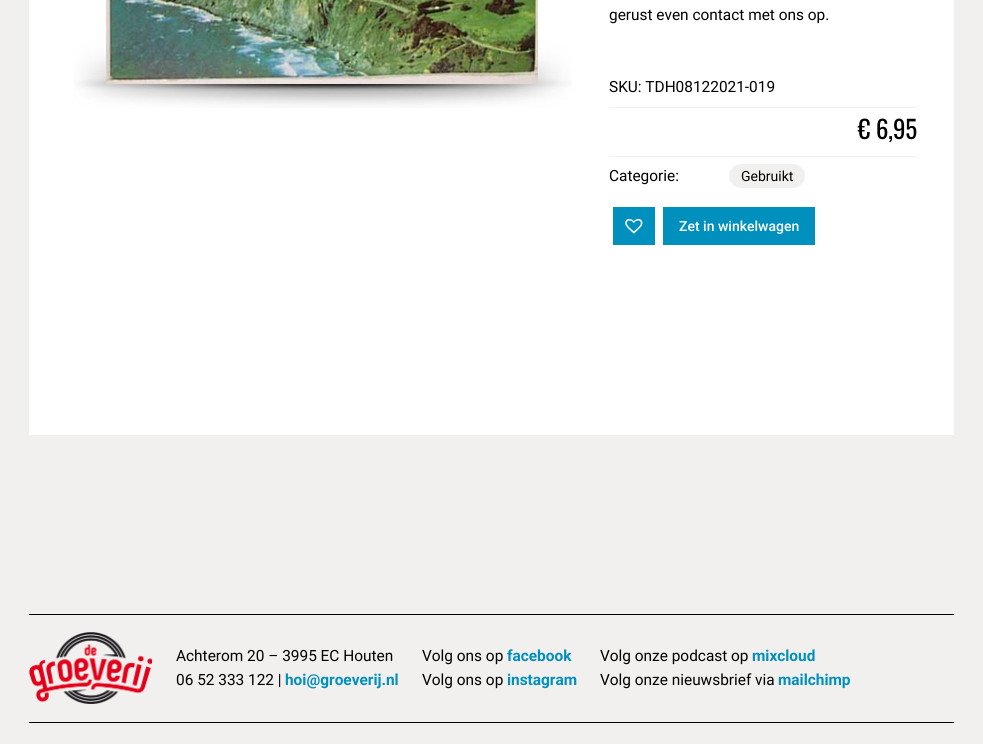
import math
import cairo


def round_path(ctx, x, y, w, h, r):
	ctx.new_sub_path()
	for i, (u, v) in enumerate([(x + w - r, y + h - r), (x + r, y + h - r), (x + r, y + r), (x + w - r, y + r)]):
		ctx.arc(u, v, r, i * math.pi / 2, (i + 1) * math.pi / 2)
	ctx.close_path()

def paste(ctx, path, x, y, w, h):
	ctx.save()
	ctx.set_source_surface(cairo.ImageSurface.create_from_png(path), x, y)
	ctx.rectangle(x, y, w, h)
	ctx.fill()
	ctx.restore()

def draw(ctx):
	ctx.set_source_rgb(0.949, 0.937, 0.937)
	ctx.paint()
	ctx.set_source_rgb(1, 1, 1)
	ctx.rectangle(29, 0, 925, 435)
	ctx.fill()
	paste(ctx, 'media/1.png', 74, 0, 498, 108)
	ctx.select_font_face('Roboto')
	ctx.set_font_size(15.4)
	ctx.set_source_rgb(0, 0, 0)
	ctx.move_to(609, 20)
	ctx.show_text('gerust even contact met ons op.')
	ctx.move_to(609, 92)
	ctx.show_text('SKU: TDH08122021-019')
	ctx.set_source_rgb(0.949, 0.937, 0.937)
	ctx.rectangle(609, 107, 308, 1)
	ctx.fill()
	ctx.select_font_face('Oswald')
	ctx.set_font_size(25)
	ctx.set_source_rgb(0, 0, 0)
	ctx.move_to(858, 139)
	ctx.show_text('€')
	ctx.move_to(876, 139)
	ctx.show_text('6,95')
	ctx.set_source_rgb(0.949, 0.937, 0.937)
	ctx.rectangle(609, 156, 308, 1)
	ctx.fill()
	ctx.select_font_face('Roboto')
	ctx.set_font_size(15.4)
	ctx.set_source_rgb(0, 0, 0)
	ctx.move_to(609, 181)
	ctx.show_text('Categorie:')
	ctx.set_source_rgb(0.949, 0.937, 0.937)
	round_path(ctx, 729, 164, 76, 24, 12)
	ctx.fill()
	ctx.set_font_size(14)
	ctx.set_source_rgb(0, 0, 0)
	ctx.move_to(741, 181)
	ctx.show_text('Gebruikt')
	ctx.set_source_rgb(0, 0.565, 0.741)
	ctx.rectangle(613, 207, 42, 38)
	ctx.fill()
	paste(ctx, 'media/2.png', 625, 218, 18, 16)
	ctx.rectangle(663, 207, 152, 38)
	ctx.fill()
	ctx.select_font_face('Roboto Medium')
	ctx.set_source_rgb(1, 1, 1)
	ctx.move_to(679, 231)
	ctx.show_text('Zet in winkelwagen')
	ctx.set_source_rgb(0, 0, 0)
	ctx.rectangle(29, 614, 925, 1)
	ctx.fill()
	ctx.rectangle(29, 722, 925, 1)
	ctx.fill()
	paste(ctx, 'media/3.png', 29, 632, 123, 72)
	ctx.select_font_face('Roboto')
	ctx.set_font_size(15.4)
	ctx.move_to(176, 661)
	ctx.show_text('Achterom 20 – 3995 EC Houten')
	ctx.move_to(176, 685)
	ctx.show_text('06 52 333 122 |')
	ctx.select_font_face('Roboto', cairo.FONT_SLANT_NORMAL, cairo.FONT_WEIGHT_BOLD)
	ctx.set_source_rgb(0, 0.565, 0.741)
	ctx.move_to(285, 685)
	ctx.show_text('hoi@groeverij.nl')
	ctx.select_font_face('Roboto')
	ctx.set_source_rgb(0, 0, 0)
	ctx.move_to(422, 661)
	ctx.show_text('Volg ons op')
	ctx.select_font_face('Roboto', cairo.FONT_SLANT_NORMAL, cairo.FONT_WEIGHT_BOLD)
	ctx.set_source_rgb(0, 0.565, 0.741)
	ctx.move_to(507, 661)
	ctx.show_text('facebook')
	ctx.select_font_face('Roboto')
	ctx.set_source_rgb(0, 0, 0)
	ctx.move_to(422, 685)
	ctx.show_text('Volg ons op')
	ctx.select_font_face('Roboto', cairo.FONT_SLANT_NORMAL, cairo.FONT_WEIGHT_BOLD)
	ctx.set_source_rgb(0, 0.565, 0.741)
	ctx.move_to(507, 685)
	ctx.show_text('instagram')
	ctx.select_font_face('Roboto')
	ctx.set_source_rgb(0, 0, 0)
	ctx.move_to(600, 661)
	ctx.show_text('Volg onze podcast op')
	ctx.select_font_face('Roboto', cairo.FONT_SLANT_NORMAL, cairo.FONT_WEIGHT_BOLD)
	ctx.set_source_rgb(0, 0.565, 0.741)
	ctx.move_to(752, 661)
	ctx.show_text('mixcloud')
	ctx.select_font_face('Roboto')
	ctx.set_source_rgb(0, 0, 0)
	ctx.move_to(600, 685)
	ctx.show_text('Volg onze nieuwsbrief via')
	ctx.select_font_face('Roboto', cairo.FONT_SLANT_NORMAL, cairo.FONT_WEIGHT_BOLD)
	ctx.set_source_rgb(0, 0.565, 0.741)
	ctx.move_to(778, 685)
	ctx.show_text('mailchimp')


surface = cairo.ImageSurface(cairo.FORMAT_RGB24, 983, 744)
ctx = cairo.Context(surface)
options = cairo.FontOptions()
options.set_hint_metrics(cairo.HINT_METRICS_OFF)
options.set_hint_style(cairo.HINT_STYLE_NONE)
ctx.set_font_options(options)
ctx.set_miter_limit(4)
draw(ctx)
surface.write_to_png('image.png')
